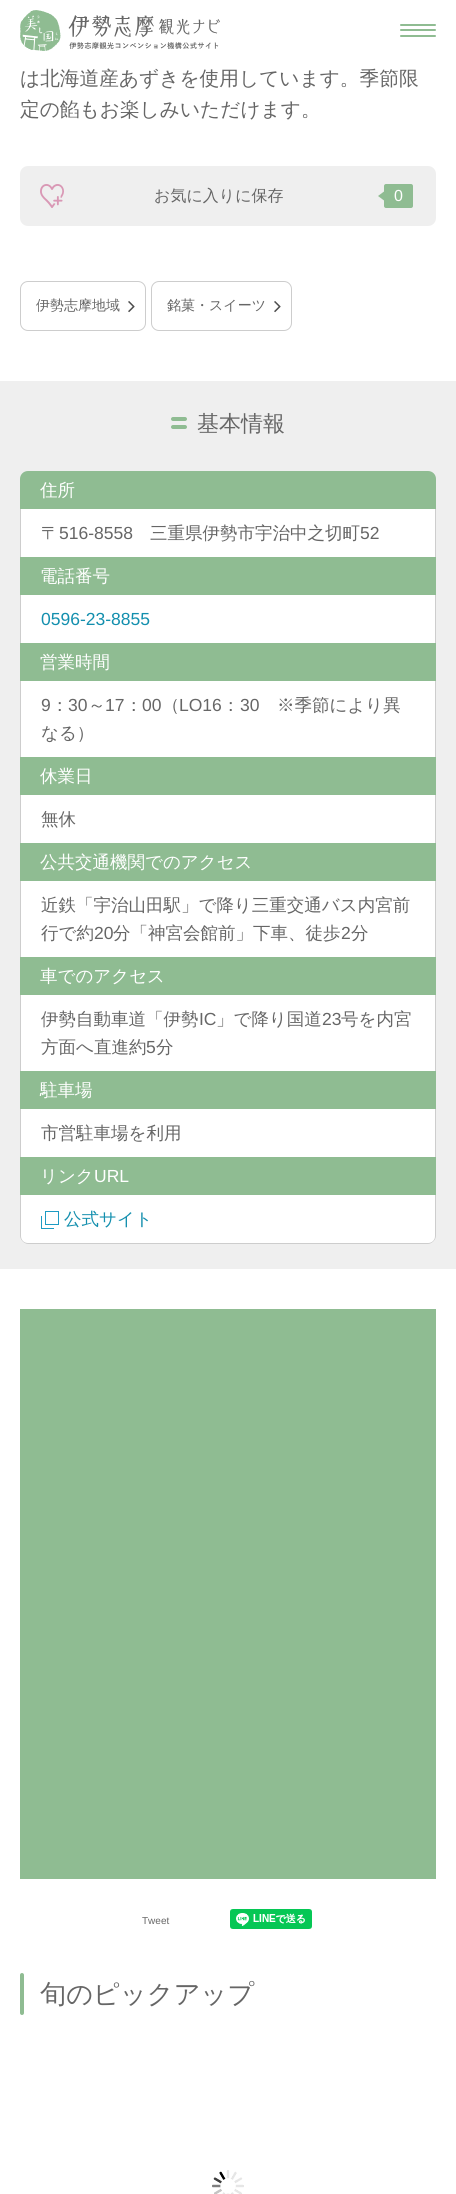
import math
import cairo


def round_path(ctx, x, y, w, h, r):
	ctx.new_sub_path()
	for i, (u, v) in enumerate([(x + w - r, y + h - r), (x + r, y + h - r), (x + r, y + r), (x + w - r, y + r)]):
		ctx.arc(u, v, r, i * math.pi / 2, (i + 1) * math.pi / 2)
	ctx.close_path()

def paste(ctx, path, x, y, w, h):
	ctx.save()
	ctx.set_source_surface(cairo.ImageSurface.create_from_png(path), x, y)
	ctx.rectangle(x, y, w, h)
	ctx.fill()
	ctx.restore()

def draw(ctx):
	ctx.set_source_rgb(1, 1, 1)
	ctx.paint()
	paste(ctx, 'media/1.png', 20, 10, 200, 41)
	ctx.set_source_rgb(0.561, 0.737, 0.573)
	round_path(ctx, 400, 24, 36, 2, 1)
	ctx.fill()
	round_path(ctx, 400, 29, 36, 2, 1)
	ctx.fill()
	round_path(ctx, 400, 35, 36, 2, 1)
	ctx.fill()
	ctx.select_font_face('WenQuanYi Zen Hei Medium')
	ctx.set_font_size(19.7)
	ctx.set_source_rgb(0.4, 0.4, 0.4)
	ctx.move_to(20, 85)
	ctx.show_text('は北海道産あずきを使用しています。季節限')
	ctx.move_to(20, 116)
	ctx.show_text('定の餡もお楽しみいただけます。')
	ctx.set_source_rgb(0.937, 0.937, 0.937)
	round_path(ctx, 20, 166, 416, 60, 8)
	ctx.fill()
	paste(ctx, 'media/2.png', 40, 184, 24, 24)
	ctx.set_font_size(16)
	ctx.set_source_rgb(0.4, 0.4, 0.4)
	ctx.move_to(154, 201)
	ctx.show_text('お気に入りに保存')
	ctx.set_source_rgb(0.561, 0.737, 0.573)
	round_path(ctx, 384, 184, 29, 24, 2)
	ctx.fill()
	ctx.new_path()
	ctx.move_to(386, 190)
	ctx.line_to(386, 202)
	ctx.line_to(378, 196)
	ctx.close_path()
	ctx.fill()
	ctx.select_font_face('Liberation Sans')
	ctx.set_source_rgb(1, 1, 1)
	ctx.move_to(394, 201)
	ctx.show_text('0')
	round_path(ctx, 20.5, 281.5, 125, 49, 7.5)
	ctx.set_source_rgb(0.804, 0.804, 0.804)
	ctx.set_line_width(1)
	ctx.stroke()
	ctx.select_font_face('WenQuanYi Zen Hei Medium')
	ctx.set_font_size(14)
	ctx.set_source_rgb(0.4, 0.4, 0.4)
	ctx.move_to(36, 310)
	ctx.show_text('伊勢志摩地域')
	paste(ctx, 'media/3.png', 128, 301, 7, 12)
	round_path(ctx, 151.5, 281.5, 140, 49, 7.5)
	ctx.set_source_rgb(0.804, 0.804, 0.804)
	ctx.stroke()
	ctx.set_source_rgb(0.4, 0.4, 0.4)
	ctx.move_to(167, 310)
	ctx.show_text('銘菓・スイーツ')
	paste(ctx, 'media/3.png', 274, 301, 7, 12)
	ctx.set_source_rgb(0.937, 0.937, 0.937)
	ctx.rectangle(0, 381, 456, 888)
	ctx.fill()
	paste(ctx, 'media/4.png', 171, 417, 16, 12)
	ctx.set_font_size(22)
	ctx.set_source_rgb(0.4, 0.4, 0.4)
	ctx.move_to(197, 431)
	ctx.show_text('基本情報')
	ctx.set_source_rgb(0.561, 0.737, 0.573)
	ctx.new_path()
	ctx.move_to(28, 471)
	ctx.line_to(428, 471)
	ctx.curve_to(432.5, 471, 436, 474.5, 436, 479)
	ctx.line_to(436, 509)
	ctx.line_to(20, 509)
	ctx.line_to(20, 479)
	ctx.curve_to(20, 474.5, 23.5, 471, 28, 471)
	ctx.close_path()
	ctx.fill()
	ctx.set_font_size(17.5)
	ctx.set_source_rgb(1, 1, 1)
	ctx.move_to(40, 496)
	ctx.show_text('住所')
	ctx.rectangle(21, 509, 414, 48)
	ctx.fill()
	ctx.set_source_rgb(0.804, 0.804, 0.804)
	ctx.rectangle(435, 509, 1, 48)
	ctx.rectangle(20, 509, 1, 48)
	ctx.fill()
	ctx.set_source_rgb(0.4, 0.4, 0.4)
	ctx.move_to(41, 539)
	ctx.show_text('〒')
	ctx.select_font_face('Liberation Sans')
	ctx.move_to(59, 539)
	ctx.show_text('516-8558')
	ctx.select_font_face('WenQuanYi Zen Hei Medium')
	ctx.move_to(150, 539)
	ctx.show_text('三重県伊勢市宇治中之切町')
	ctx.select_font_face('Liberation Sans')
	ctx.move_to(360, 539)
	ctx.show_text('52')
	ctx.set_source_rgb(0.561, 0.737, 0.573)
	ctx.rectangle(20, 557, 416, 38)
	ctx.fill()
	ctx.select_font_face('WenQuanYi Zen Hei Medium')
	ctx.set_source_rgb(1, 1, 1)
	ctx.move_to(40, 582)
	ctx.show_text('電話番号')
	ctx.rectangle(21, 595, 414, 48)
	ctx.fill()
	ctx.set_source_rgb(0.804, 0.804, 0.804)
	ctx.rectangle(435, 595, 1, 48)
	ctx.rectangle(20, 595, 1, 48)
	ctx.fill()
	ctx.select_font_face('Liberation Sans')
	ctx.set_source_rgb(0.078, 0.561, 0.682)
	ctx.move_to(41, 625)
	ctx.show_text('0596-23-8855')
	ctx.set_source_rgb(0.561, 0.737, 0.573)
	ctx.rectangle(20, 643, 416, 38)
	ctx.fill()
	ctx.select_font_face('WenQuanYi Zen Hei Medium')
	ctx.set_source_rgb(1, 1, 1)
	ctx.move_to(40, 668)
	ctx.show_text('営業時間')
	ctx.rectangle(21, 681, 414, 76)
	ctx.fill()
	ctx.set_source_rgb(0.804, 0.804, 0.804)
	ctx.rectangle(435, 681, 1, 76)
	ctx.rectangle(20, 681, 1, 76)
	ctx.fill()
	ctx.select_font_face('Liberation Sans')
	ctx.set_source_rgb(0.4, 0.4, 0.4)
	ctx.move_to(41, 711)
	ctx.show_text('9')
	ctx.select_font_face('WenQuanYi Zen Hei Medium')
	ctx.move_to(51, 711)
	ctx.show_text('：')
	ctx.select_font_face('Liberation Sans')
	ctx.move_to(68, 711)
	ctx.show_text('30')
	ctx.select_font_face('WenQuanYi Zen Hei Medium')
	ctx.move_to(88, 711)
	ctx.show_text('～')
	ctx.select_font_face('Liberation Sans')
	ctx.move_to(105, 711)
	ctx.show_text('17')
	ctx.select_font_face('WenQuanYi Zen Hei Medium')
	ctx.move_to(125, 711)
	ctx.show_text('：')
	ctx.select_font_face('Liberation Sans')
	ctx.move_to(142, 711)
	ctx.show_text('00')
	ctx.select_font_face('WenQuanYi Zen Hei Medium')
	ctx.move_to(162, 711)
	ctx.show_text('（')
	ctx.select_font_face('Liberation Sans')
	ctx.move_to(179, 711)
	ctx.show_text('LO16')
	ctx.select_font_face('WenQuanYi Zen Hei Medium')
	ctx.move_to(222, 711)
	ctx.show_text('：')
	ctx.select_font_face('Liberation Sans')
	ctx.move_to(240, 711)
	ctx.show_text('30')
	ctx.select_font_face('WenQuanYi Zen Hei Medium')
	ctx.move_to(277, 711)
	ctx.show_text('※季節により異')
	ctx.move_to(41, 739)
	ctx.show_text('なる）')
	ctx.set_source_rgb(0.561, 0.737, 0.573)
	ctx.rectangle(20, 757, 416, 38)
	ctx.fill()
	ctx.set_source_rgb(1, 1, 1)
	ctx.move_to(40, 782)
	ctx.show_text('休業日')
	ctx.rectangle(21, 795, 414, 48)
	ctx.fill()
	ctx.set_source_rgb(0.804, 0.804, 0.804)
	ctx.rectangle(435, 795, 1, 48)
	ctx.rectangle(20, 795, 1, 48)
	ctx.fill()
	ctx.set_source_rgb(0.4, 0.4, 0.4)
	ctx.move_to(41, 825)
	ctx.show_text('無休')
	ctx.set_source_rgb(0.561, 0.737, 0.573)
	ctx.rectangle(20, 843, 416, 38)
	ctx.fill()
	ctx.set_source_rgb(1, 1, 1)
	ctx.move_to(40, 868)
	ctx.show_text('公共交通機関でのアクセス')
	ctx.rectangle(21, 881, 414, 76)
	ctx.fill()
	ctx.set_source_rgb(0.804, 0.804, 0.804)
	ctx.rectangle(435, 881, 1, 76)
	ctx.rectangle(20, 881, 1, 76)
	ctx.fill()
	ctx.set_source_rgb(0.4, 0.4, 0.4)
	ctx.move_to(41, 911)
	ctx.show_text('近鉄「宇治山田駅」で降り三重交通バス内宮前')
	ctx.move_to(41, 939)
	ctx.show_text('行で約')
	ctx.select_font_face('Liberation Sans')
	ctx.move_to(94, 939)
	ctx.show_text('20')
	ctx.select_font_face('WenQuanYi Zen Hei Medium')
	ctx.move_to(113, 939)
	ctx.show_text('分「神宮会館前」下車、徒歩')
	ctx.select_font_face('Liberation Sans')
	ctx.move_to(341, 939)
	ctx.show_text('2')
	ctx.select_font_face('WenQuanYi Zen Hei Medium')
	ctx.move_to(351, 939)
	ctx.show_text('分')
	ctx.set_source_rgb(0.561, 0.737, 0.573)
	ctx.rectangle(20, 957, 416, 38)
	ctx.fill()
	ctx.set_source_rgb(1, 1, 1)
	ctx.move_to(40, 982)
	ctx.show_text('車でのアクセス')
	ctx.rectangle(21, 995, 414, 76)
	ctx.fill()
	ctx.set_source_rgb(0.804, 0.804, 0.804)
	ctx.rectangle(435, 995, 1, 76)
	ctx.rectangle(20, 995, 1, 76)
	ctx.fill()
	ctx.set_source_rgb(0.4, 0.4, 0.4)
	ctx.move_to(41, 1025)
	ctx.show_text('伊勢自動車道「伊勢')
	ctx.select_font_face('Liberation Sans')
	ctx.move_to(199, 1025)
	ctx.show_text('IC')
	ctx.select_font_face('WenQuanYi Zen Hei Medium')
	ctx.move_to(216, 1025)
	ctx.show_text('」で降り国道')
	ctx.select_font_face('Liberation Sans')
	ctx.move_to(322, 1025)
	ctx.show_text('23')
	ctx.select_font_face('WenQuanYi Zen Hei Medium')
	ctx.move_to(341, 1025)
	ctx.show_text('号を内宮')
	ctx.move_to(41, 1053)
	ctx.show_text('方面へ直進約')
	ctx.select_font_face('Liberation Sans')
	ctx.move_to(146, 1053)
	ctx.show_text('5')
	ctx.select_font_face('WenQuanYi Zen Hei Medium')
	ctx.move_to(156, 1053)
	ctx.show_text('分')
	ctx.set_source_rgb(0.561, 0.737, 0.573)
	ctx.rectangle(20, 1071, 416, 38)
	ctx.fill()
	ctx.set_source_rgb(1, 1, 1)
	ctx.move_to(40, 1096)
	ctx.show_text('駐車場')
	ctx.rectangle(21, 1109, 414, 48)
	ctx.fill()
	ctx.set_source_rgb(0.804, 0.804, 0.804)
	ctx.rectangle(435, 1109, 1, 48)
	ctx.rectangle(20, 1109, 1, 48)
	ctx.fill()
	ctx.set_source_rgb(0.4, 0.4, 0.4)
	ctx.move_to(41, 1139)
	ctx.show_text('市営駐車場を利用')
	ctx.set_source_rgb(0.561, 0.737, 0.573)
	ctx.rectangle(20, 1157, 416, 38)
	ctx.fill()
	ctx.set_source_rgb(1, 1, 1)
	ctx.move_to(40, 1182)
	ctx.show_text('リンク')
	ctx.select_font_face('Liberation Sans')
	ctx.move_to(94, 1182)
	ctx.show_text('URL')
	ctx.new_path()
	ctx.move_to(20, 1195)
	ctx.line_to(436, 1195)
	ctx.line_to(436, 1236)
	ctx.curve_to(436, 1240.5, 432.5, 1244, 428, 1244)
	ctx.line_to(28, 1244)
	ctx.curve_to(23.5, 1244, 20, 1240.5, 20, 1236)
	ctx.close_path()
	ctx.fill()
	ctx.set_source_rgb(0.804, 0.804, 0.804)
	ctx.set_fill_rule(cairo.FILL_RULE_EVEN_ODD)
	ctx.new_path()
	ctx.move_to(20, 1195)
	ctx.line_to(436, 1195)
	ctx.line_to(436, 1236)
	ctx.curve_to(436, 1240, 432, 1244, 428, 1244)
	ctx.line_to(28, 1244)
	ctx.curve_to(24, 1244, 20, 1240, 20, 1236)
	ctx.close_path()
	ctx.move_to(21, 1195)
	ctx.line_to(435, 1195)
	ctx.line_to(435, 1236)
	ctx.curve_to(435, 1240, 432, 1243, 428, 1243)
	ctx.line_to(28, 1243)
	ctx.curve_to(24, 1243, 21, 1240, 21, 1236)
	ctx.close_path()
	ctx.fill()
	paste(ctx, 'media/5.png', 41, 1211, 18, 18)
	ctx.select_font_face('WenQuanYi Zen Hei Medium')
	ctx.set_source_rgb(0.078, 0.561, 0.682)
	ctx.move_to(64, 1225)
	ctx.show_text('公式サイト')
	ctx.set_source_rgb(0.561, 0.737, 0.573)
	ctx.rectangle(20, 1309, 416, 570)
	ctx.fill()
	ctx.select_font_face('Liberation Sans')
	ctx.set_font_size(10)
	ctx.set_source_rgb(0.4, 0.4, 0.4)
	ctx.move_to(142, 1924)
	ctx.show_text('Tweet')
	paste(ctx, 'media/6.png', 230, 1909, 82, 20)
	ctx.set_source_rgb(0.561, 0.737, 0.573)
	round_path(ctx, 20, 1973, 4, 42, 2)
	ctx.fill()
	ctx.select_font_face('WenQuanYi Zen Hei Medium')
	ctx.set_font_size(26.25)
	ctx.set_source_rgb(0.4, 0.4, 0.4)
	ctx.move_to(40, 2003)
	ctx.show_text('旬のピックアップ')
	paste(ctx, 'media/7.png', 212, 2170, 32, 24)


surface = cairo.ImageSurface(cairo.FORMAT_RGB24, 456, 2194)
ctx = cairo.Context(surface)
options = cairo.FontOptions()
options.set_hint_metrics(cairo.HINT_METRICS_OFF)
options.set_hint_style(cairo.HINT_STYLE_NONE)
ctx.set_font_options(options)
ctx.set_miter_limit(4)
draw(ctx)
surface.write_to_png('image.png')
